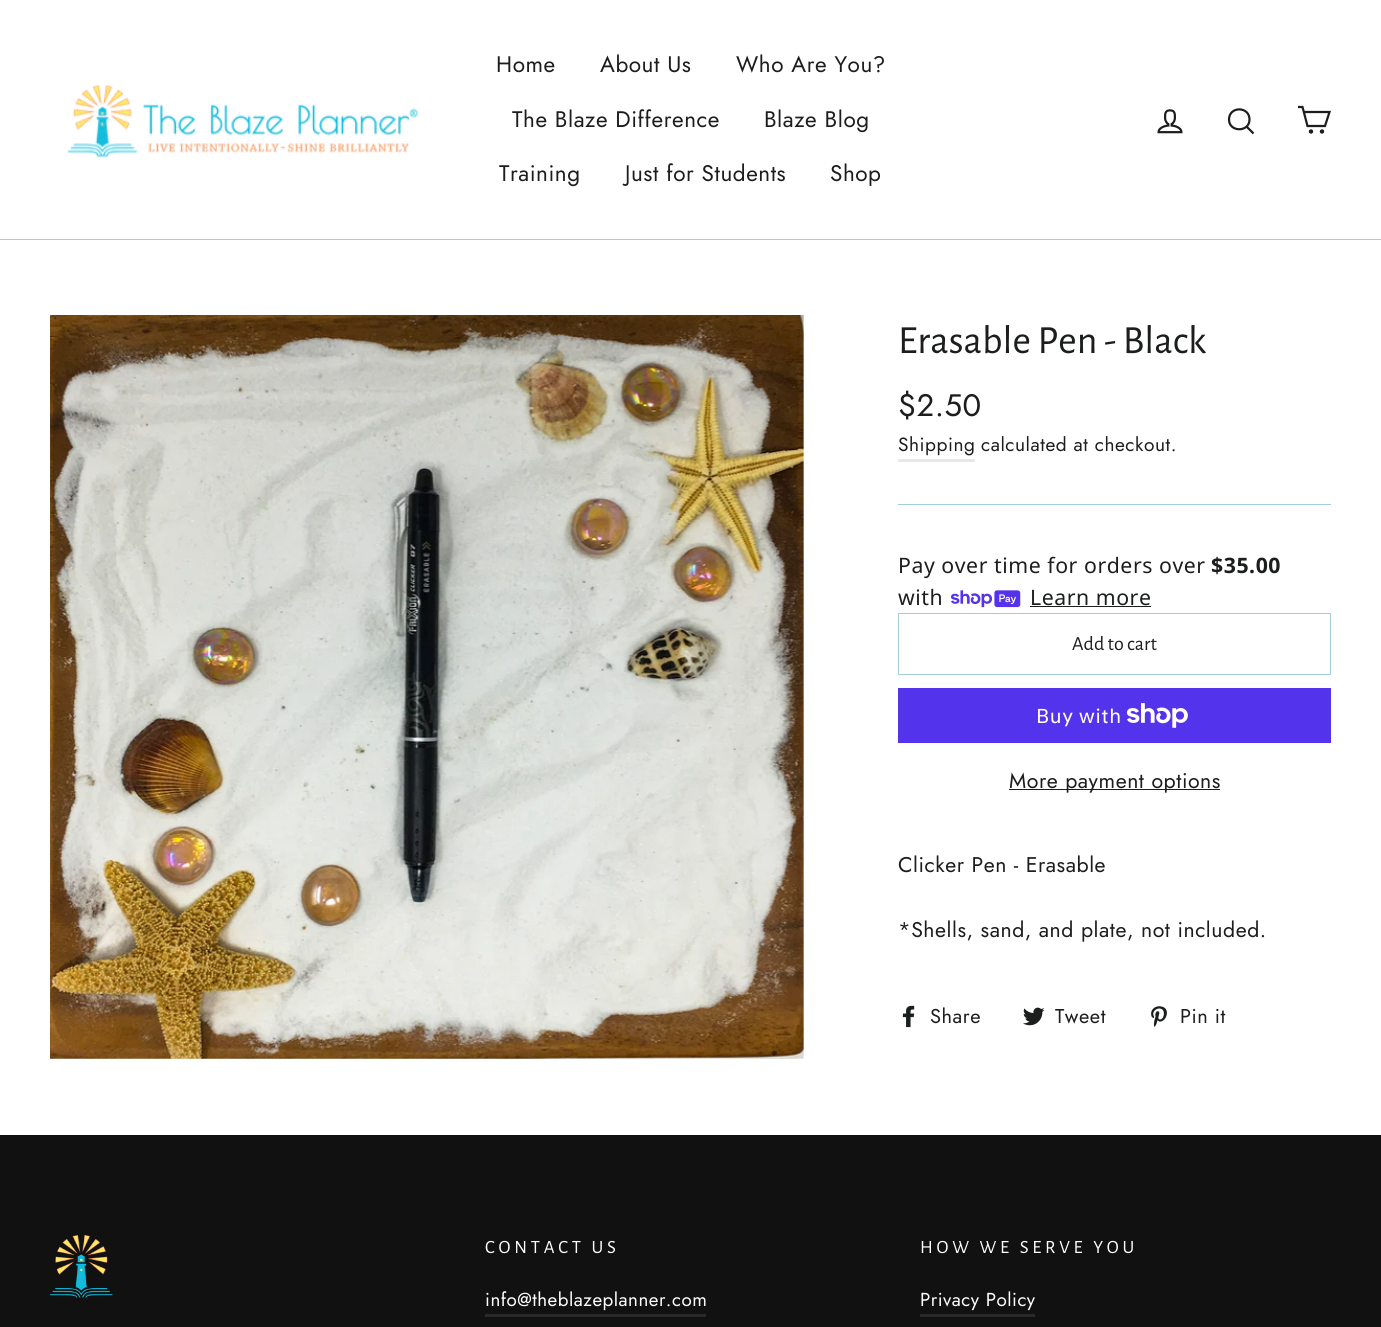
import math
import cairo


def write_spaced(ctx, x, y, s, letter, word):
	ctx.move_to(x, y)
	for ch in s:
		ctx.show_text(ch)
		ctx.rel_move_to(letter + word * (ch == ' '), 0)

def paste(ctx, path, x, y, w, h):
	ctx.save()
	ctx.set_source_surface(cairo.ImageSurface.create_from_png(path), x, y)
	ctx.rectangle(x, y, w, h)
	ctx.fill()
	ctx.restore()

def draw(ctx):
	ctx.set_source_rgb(1, 1, 1)
	ctx.paint()
	ctx.set_source_rgb(0.647, 0.808, 0.867)
	ctx.rectangle(0, 239, 1381, 1)
	ctx.fill()
	paste(ctx, 'media/1.png', 67, 84, 352, 74)
	ctx.select_font_face('Jost')
	ctx.set_font_size(22.5)
	ctx.set_source_rgb(0.11, 0.114, 0.114)
	for x, y, s in [
		(496, 72, 'Home'),
		(600, 72, 'About Us'),
		(736, 72, 'Who Are You?'),
		(512, 127, 'The Blaze Difference'),
		(764, 127, 'Blaze Blog'),
		(499, 181, 'Training'),
		(625, 181, 'Just for Students'),
		(830, 181, 'Shop'),
	]:
		write_spaced(ctx, x, y, s, 0.55, 0)
	paste(ctx, 'media/2.png', 1157, 109, 26, 25)
	ctx.new_path()
	ctx.move_to(1249.5, 119.5)
	ctx.curve_to(1249.5, 132.5, 1229, 132.5, 1229, 119.5)
	ctx.curve_to(1229, 106, 1249.5, 106, 1249.5, 119.5)
	ctx.close_path()
	ctx.move_to(1253.5, 133.5)
	ctx.line_to(1246.5, 126.5)
	ctx.set_line_width(2.2)
	ctx.stroke()
	ctx.new_path()
	ctx.move_to(1304, 112)
	ctx.line_to(1329.5, 112)
	ctx.line_to(1325, 126)
	ctx.line_to(1307.5, 126)
	ctx.line_to(1302.5, 107)
	ctx.line_to(1298, 107)
	ctx.stroke()
	ctx.arc(1311, 131.5, 1.1, 0, 2 * math.pi)
	ctx.stroke()
	ctx.arc(1322, 131.5, 1.1, 0, 2 * math.pi)
	ctx.stroke()
	paste(ctx, 'media/3.png', 50, 315, 754, 744)
	ctx.select_font_face('Alegreya Sans')
	ctx.set_font_size(40)
	ctx.move_to(898, 353)
	ctx.show_text('Erasable Pen - Black')
	ctx.select_font_face('Jost')
	ctx.set_font_size(31)
	write_spaced(ctx, 898, 416, '$2.50', 0.55, 0)
	ctx.set_font_size(19.1)
	write_spaced(ctx, 898, 451, 'Shipping', 0.55, 0)
	ctx.set_source_rgb(0.91, 0.91, 0.91)
	ctx.rectangle(898, 459, 77, 3)
	ctx.fill()
	ctx.set_source_rgb(0.11, 0.114, 0.114)
	write_spaced(ctx, 981, 451, 'calculated at checkout.', 0.55, 0)
	ctx.set_source_rgb(0.647, 0.808, 0.867)
	ctx.rectangle(898, 504, 433, 1)
	ctx.fill()
	ctx.select_font_face('Noto Sans')
	ctx.set_font_size(21.25)
	ctx.set_source_rgb(0.11, 0.114, 0.114)
	write_spaced(ctx, 898, 573, 'Pay over time for orders over', 0.55, 0)
	ctx.select_font_face('Noto Sans', cairo.FONT_SLANT_NORMAL, cairo.FONT_WEIGHT_BOLD)
	write_spaced(ctx, 1211, 573, '$35.00', 0.55, 0)
	ctx.select_font_face('Noto Sans')
	write_spaced(ctx, 898, 605, 'with', 0.55, 0)
	paste(ctx, 'media/4.png', 951, 590, 70, 18)
	write_spaced(ctx, 1030, 605, 'Learn more', 0.55, 0)
	ctx.rectangle(1030, 606, 121, 1)
	ctx.fill()
	ctx.rectangle(898.5, 613.5, 432, 61)
	ctx.set_source_rgb(0.647, 0.808, 0.867)
	ctx.set_line_width(1)
	ctx.stroke()
	ctx.select_font_face('Alegreya Sans')
	ctx.set_font_size(20)
	ctx.set_source_rgb(0.11, 0.114, 0.114)
	ctx.move_to(1072, 650)
	ctx.show_text('Add to cart')
	ctx.set_source_rgb(0.329, 0.2, 0.922)
	ctx.rectangle(898, 688, 433, 55)
	ctx.fill()
	ctx.select_font_face('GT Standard')
	ctx.set_source_rgb(1, 1, 1)
	write_spaced(ctx, 1036, 723, 'Buy with', 0.55, 0)
	paste(ctx, 'media/5.png', 1126, 703, 62, 25)
	ctx.set_source_rgb(0.11, 0.114, 0.114)
	ctx.rectangle(1009, 789, 211, 1)
	ctx.fill()
	ctx.select_font_face('Jost')
	ctx.set_font_size(21.25)
	for x, y, s in [
		(1009, 788, 'More payment options'),
		(898, 872, 'Clicker Pen - Erasable'),
		(898, 937, '*Shells, sand, and plate, not included.'),
	]:
		write_spaced(ctx, x, y, s, 0.55, 0)
	paste(ctx, 'media/6.png', 902, 1005, 13, 23)
	ctx.set_font_size(20)
	write_spaced(ctx, 930, 1023, 'Share', 0.55, 0)
	paste(ctx, 'media/7.png', 1023, 1007, 22, 19)
	write_spaced(ctx, 1055, 1023, 'Tweet', 0.55, 0)
	paste(ctx, 'media/8.png', 1151, 1006, 16, 21)
	write_spaced(ctx, 1180, 1023, 'Pin it', 0.55, 0)
	ctx.set_source_rgb(0.067, 0.067, 0.067)
	ctx.rectangle(0, 1135, 1381, 192)
	ctx.fill()
	paste(ctx, 'media/9.png', 50, 1235, 63, 63)
	ctx.select_font_face('Alegreya Sans')
	ctx.set_font_size(18.75)
	ctx.set_source_rgb(1, 1, 1)
	write_spaced(ctx, 485, 1253, 'CONTACT US', 3.75, 0)
	ctx.select_font_face('Jost')
	write_spaced(ctx, 485, 1306, 'info@theblazeplanner.com', 0.5, 0)
	ctx.set_source_rgb(0.161, 0.161, 0.161)
	ctx.rectangle(485, 1314, 221, 3)
	ctx.fill()
	ctx.select_font_face('Alegreya Sans')
	ctx.set_source_rgb(1, 1, 1)
	write_spaced(ctx, 920, 1253, 'HOW WE SERVE YOU', 3.75, 0)
	ctx.select_font_face('Jost')
	write_spaced(ctx, 920, 1306, 'Privacy Policy', 0.5, 0)
	ctx.set_source_rgb(0.161, 0.161, 0.161)
	ctx.rectangle(920, 1314, 115, 3)
	ctx.fill()


surface = cairo.ImageSurface(cairo.FORMAT_RGB24, 1381, 1327)
ctx = cairo.Context(surface)
options = cairo.FontOptions()
options.set_hint_metrics(cairo.HINT_METRICS_OFF)
options.set_hint_style(cairo.HINT_STYLE_NONE)
ctx.set_font_options(options)
ctx.set_miter_limit(4)
draw(ctx)
surface.write_to_png('image.png')
